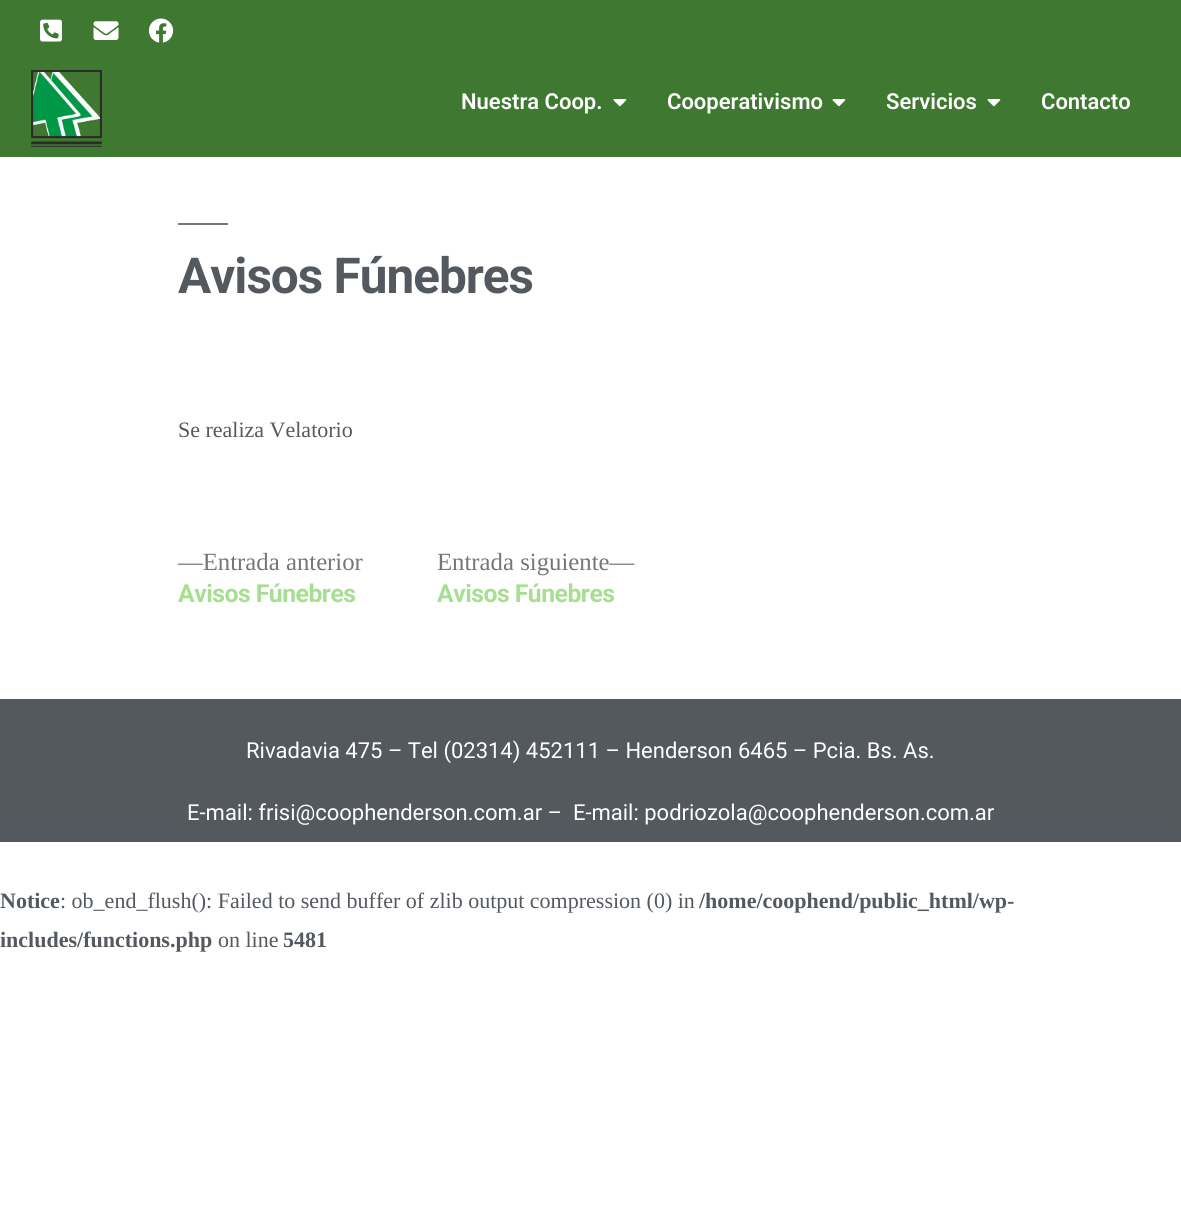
import math
import cairo


def write_spaced(ctx, x, y, s, letter, word):
	ctx.move_to(x, y)
	for ch in s:
		ctx.show_text(ch)
		ctx.rel_move_to(letter + word * (ch == ' '), 0)

def paste(ctx, path, x, y, w, h):
	ctx.save()
	ctx.set_source_surface(cairo.ImageSurface.create_from_png(path), x, y)
	ctx.rectangle(x, y, w, h)
	ctx.fill()
	ctx.restore()

def draw(ctx):
	ctx.set_source_rgb(1, 1, 1)
	ctx.paint()
	ctx.set_source_rgb(0.243, 0.471, 0.192)
	ctx.rectangle(0, 0, 1181, 157)
	ctx.fill()
	paste(ctx, 'media/1.png', 40, 19, 22, 23)
	paste(ctx, 'media/2.png', 93, 21, 26, 19)
	paste(ctx, 'media/3.png', 148, 18, 26, 25)
	paste(ctx, 'media/4.png', 31, 70, 71, 77)
	ctx.select_font_face('Roboto SemiBold')
	ctx.set_font_size(22)
	ctx.set_source_rgb(1, 1, 1)
	ctx.move_to(461, 109)
	ctx.show_text('Nuestra Coop.')
	paste(ctx, 'media/5.png', 613, 99, 14, 8)
	ctx.move_to(667, 109)
	ctx.show_text('Cooperativismo')
	paste(ctx, 'media/5.png', 832, 99, 14, 8)
	ctx.move_to(886, 109)
	ctx.show_text('Servicios')
	paste(ctx, 'media/5.png', 987, 99, 14, 8)
	ctx.move_to(1041, 109)
	ctx.show_text('Contacto')
	ctx.set_source_rgb(0.463, 0.463, 0.463)
	ctx.rectangle(178, 223, 50, 2)
	ctx.fill()
	ctx.select_font_face('Roboto', cairo.FONT_SLANT_NORMAL, cairo.FONT_WEIGHT_BOLD)
	ctx.set_font_size(49.5)
	ctx.set_source_rgb(0.329, 0.349, 0.373)
	write_spaced(ctx, 178, 293, 'Avisos Fúnebres', -1, 0)
	ctx.select_font_face('Liberation Serif')
	ctx.set_font_size(22)
	ctx.move_to(178, 437)
	ctx.show_text('Se realiza Velatorio')
	ctx.set_font_size(24.75)
	ctx.set_source_rgb(0.463, 0.463, 0.463)
	ctx.move_to(178, 570)
	ctx.show_text('—Entrada anterior')
	ctx.select_font_face('Roboto', cairo.FONT_SLANT_NORMAL, cairo.FONT_WEIGHT_BOLD)
	ctx.set_source_rgb(0.651, 0.875, 0.569)
	write_spaced(ctx, 178, 602, 'Avisos Fúnebres', -0.5, 0)
	ctx.select_font_face('Liberation Serif')
	ctx.set_source_rgb(0.463, 0.463, 0.463)
	ctx.move_to(437, 570)
	ctx.show_text('Entrada siguiente—')
	ctx.select_font_face('Roboto', cairo.FONT_SLANT_NORMAL, cairo.FONT_WEIGHT_BOLD)
	ctx.set_source_rgb(0.651, 0.875, 0.569)
	write_spaced(ctx, 437, 602, 'Avisos Fúnebres', -0.5, 0)
	ctx.set_source_rgb(0.329, 0.349, 0.373)
	ctx.rectangle(0, 699, 1181, 143)
	ctx.fill()
	ctx.select_font_face('Roboto')
	ctx.set_font_size(22)
	ctx.set_source_rgb(1, 1, 1)
	ctx.move_to(246, 758)
	ctx.show_text('Rivadavia 475 – Tel (02314) 452111 – Henderson 6465 – Pcia. Bs. As.')
	ctx.move_to(187, 820)
	ctx.show_text('E-mail: frisi@coophenderson.com.ar –  E-mail: podriozola@coophenderson.com.ar')
	ctx.select_font_face('Liberation Serif', cairo.FONT_SLANT_NORMAL, cairo.FONT_WEIGHT_BOLD)
	ctx.set_source_rgb(0.329, 0.349, 0.373)
	ctx.move_to(0, 908)
	ctx.show_text('Notice')
	ctx.select_font_face('Liberation Serif')
	ctx.move_to(60, 908)
	ctx.show_text(': ob_end_flush(): Failed to send buffer of zlib output compression (0) in')
	ctx.select_font_face('Liberation Serif', cairo.FONT_SLANT_NORMAL, cairo.FONT_WEIGHT_BOLD)
	ctx.move_to(699, 908)
	ctx.show_text('/home/coophend/public_html/wp-')
	ctx.move_to(0, 947)
	ctx.show_text('includes/functions.php')
	ctx.select_font_face('Liberation Serif')
	ctx.move_to(218, 947)
	ctx.show_text('on line')
	ctx.select_font_face('Liberation Serif', cairo.FONT_SLANT_NORMAL, cairo.FONT_WEIGHT_BOLD)
	ctx.move_to(283, 947)
	ctx.show_text('5481')


surface = cairo.ImageSurface(cairo.FORMAT_RGB24, 1181, 1217)
ctx = cairo.Context(surface)
options = cairo.FontOptions()
options.set_hint_metrics(cairo.HINT_METRICS_OFF)
options.set_hint_style(cairo.HINT_STYLE_NONE)
ctx.set_font_options(options)
ctx.set_miter_limit(4)
draw(ctx)
surface.write_to_png('image.png')
